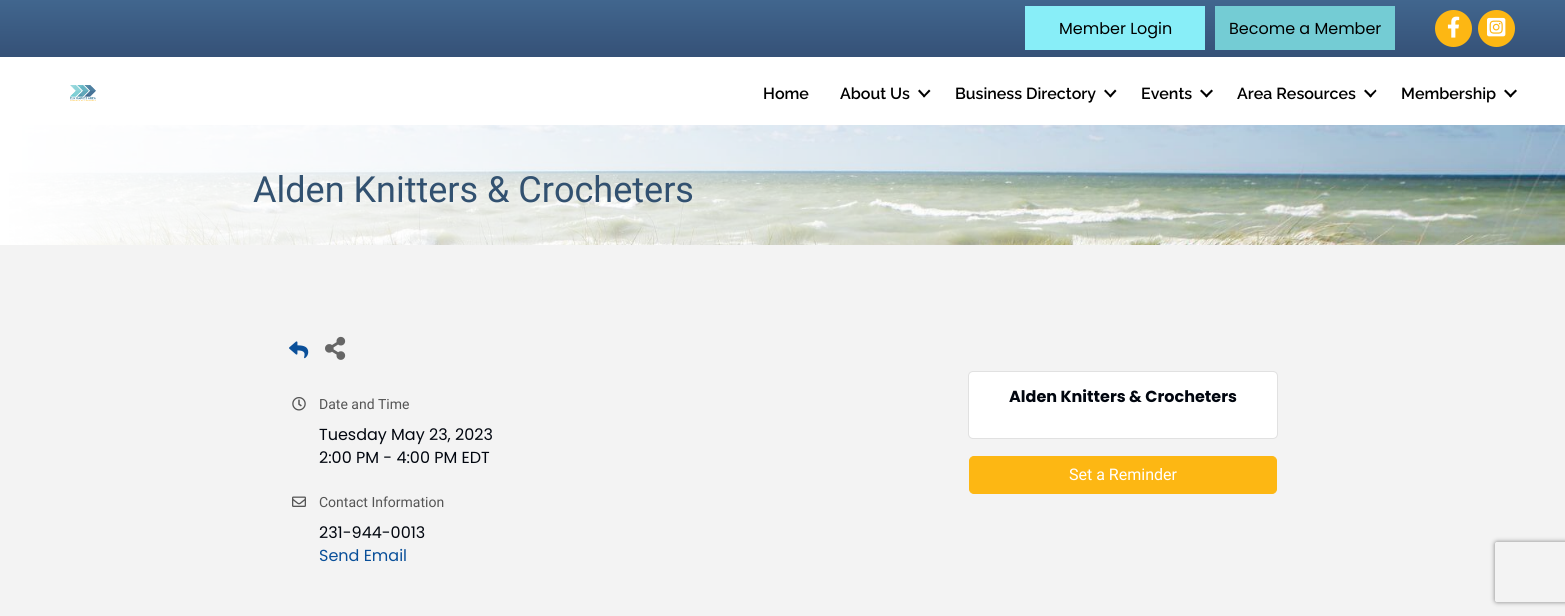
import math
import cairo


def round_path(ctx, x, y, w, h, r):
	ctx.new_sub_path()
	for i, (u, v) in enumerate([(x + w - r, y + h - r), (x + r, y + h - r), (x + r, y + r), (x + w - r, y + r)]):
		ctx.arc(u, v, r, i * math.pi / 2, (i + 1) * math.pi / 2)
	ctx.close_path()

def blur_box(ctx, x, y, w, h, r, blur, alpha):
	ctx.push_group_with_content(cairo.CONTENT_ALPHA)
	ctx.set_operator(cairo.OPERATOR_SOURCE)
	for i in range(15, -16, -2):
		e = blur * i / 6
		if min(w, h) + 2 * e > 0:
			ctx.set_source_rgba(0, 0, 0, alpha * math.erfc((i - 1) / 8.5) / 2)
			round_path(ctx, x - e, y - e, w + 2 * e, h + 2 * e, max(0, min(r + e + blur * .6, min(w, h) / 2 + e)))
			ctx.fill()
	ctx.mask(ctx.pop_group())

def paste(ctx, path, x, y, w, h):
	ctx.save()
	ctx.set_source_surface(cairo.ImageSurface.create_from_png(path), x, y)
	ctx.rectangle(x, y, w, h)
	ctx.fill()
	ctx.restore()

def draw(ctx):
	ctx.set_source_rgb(1, 1, 1)
	ctx.paint()
	gradient = cairo.LinearGradient(783, 0, 783, 57)
	gradient.add_color_stop_rgba(0, 0.255, 0.4, 0.557, 1)
	gradient.add_color_stop_rgba(1, 0.208, 0.318, 0.467, 1)
	ctx.set_source(gradient)
	ctx.rectangle(0, 0, 1565, 57)
	ctx.fill()
	ctx.set_source_rgb(0.533, 0.933, 0.969)
	ctx.rectangle(1025, 6, 180, 44)
	ctx.fill()
	ctx.select_font_face('Poppins')
	ctx.set_font_size(16)
	ctx.set_source_rgb(0, 0, 0)
	ctx.move_to(1059, 34)
	ctx.show_text('Member Login')
	ctx.set_source_rgb(0.455, 0.8, 0.831)
	ctx.rectangle(1215, 6, 180, 44)
	ctx.fill()
	ctx.set_source_rgb(0, 0, 0)
	ctx.move_to(1229, 34)
	ctx.show_text('Become a Member')
	ctx.set_source_rgb(0.992, 0.718, 0.078)
	ctx.new_path()
	ctx.arc(1453.5, 28.5, 18.5, 0, 2 * math.pi)
	ctx.fill()
	paste(ctx, 'media/1.png', 1447, 16, 13, 22)
	ctx.arc(1496.5, 28.5, 18.5, 0, 2 * math.pi)
	ctx.fill()
	paste(ctx, 'media/2.png', 1487, 17, 19, 20)
	paste(ctx, 'media/3.png', 70, 85, 26, 16)
	ctx.select_font_face('Raleway SemiBold')
	ctx.set_source_rgb(0, 0, 0)
	ctx.move_to(763, 99)
	ctx.show_text('Home')
	ctx.move_to(840, 99)
	ctx.show_text('About Us')
	ctx.new_path()
	ctx.move_to(929, 89.5)
	ctx.line_to(930.5, 91)
	ctx.line_to(924, 97.5)
	ctx.line_to(923, 96)
	ctx.close_path()
	ctx.fill()
	ctx.new_path()
	ctx.move_to(919.5, 89.5)
	ctx.line_to(925.5, 96)
	ctx.line_to(924, 97.5)
	ctx.line_to(918, 91)
	ctx.close_path()
	ctx.fill()
	ctx.move_to(955, 99)
	ctx.show_text('Business Directory')
	ctx.new_path()
	ctx.move_to(1115, 89.5)
	ctx.line_to(1116.5, 91)
	ctx.line_to(1110.5, 97.5)
	ctx.line_to(1109, 96)
	ctx.close_path()
	ctx.fill()
	ctx.new_path()
	ctx.move_to(1105.5, 89.5)
	ctx.line_to(1111.5, 96)
	ctx.line_to(1110.5, 97.5)
	ctx.line_to(1104, 91)
	ctx.close_path()
	ctx.fill()
	ctx.move_to(1141, 99)
	ctx.show_text('Events')
	ctx.new_path()
	ctx.move_to(1211.5, 89.5)
	ctx.line_to(1213, 91)
	ctx.line_to(1206.5, 97.5)
	ctx.line_to(1205, 96)
	ctx.close_path()
	ctx.fill()
	ctx.new_path()
	ctx.move_to(1201.5, 89.5)
	ctx.line_to(1208, 96)
	ctx.line_to(1206.5, 97.5)
	ctx.line_to(1200, 91)
	ctx.close_path()
	ctx.fill()
	ctx.move_to(1237, 99)
	ctx.show_text('Area Resources')
	ctx.new_path()
	ctx.move_to(1375.5, 89.5)
	ctx.line_to(1376.5, 91)
	ctx.line_to(1370.5, 97.5)
	ctx.line_to(1369, 96)
	ctx.close_path()
	ctx.fill()
	ctx.new_path()
	ctx.move_to(1365.5, 89.5)
	ctx.line_to(1372, 96)
	ctx.line_to(1370.5, 97.5)
	ctx.line_to(1364, 91)
	ctx.close_path()
	ctx.fill()
	ctx.move_to(1401, 99)
	ctx.show_text('Membership')
	ctx.new_path()
	ctx.move_to(1515.5, 89.5)
	ctx.line_to(1517, 91)
	ctx.line_to(1510.5, 97.5)
	ctx.line_to(1509, 96)
	ctx.close_path()
	ctx.fill()
	ctx.new_path()
	ctx.move_to(1505.5, 89.5)
	ctx.line_to(1512, 96)
	ctx.line_to(1510.5, 97.5)
	ctx.line_to(1504, 91)
	ctx.close_path()
	ctx.fill()
	ctx.set_source_rgb(0.953, 0.953, 0.953)
	ctx.rectangle(0, 245, 1565, 371)
	ctx.fill()
	paste(ctx, 'media/4.png', 0, 125, 1565, 120)
	ctx.select_font_face('Roboto')
	ctx.set_font_size(36)
	ctx.set_source_rgb(0.196, 0.318, 0.439)
	ctx.move_to(253, 202)
	ctx.show_text('Alden Knitters & Crocheters')
	paste(ctx, 'media/5.png', 289, 341, 20, 18)
	paste(ctx, 'media/6.png', 325, 336, 21, 24)
	paste(ctx, 'media/7.png', 292, 397, 14, 14)
	ctx.set_font_size(14)
	ctx.set_source_rgb(0.333, 0.333, 0.333)
	ctx.move_to(319, 409)
	ctx.show_text('Date and Time')
	ctx.select_font_face('Poppins')
	ctx.set_font_size(16)
	ctx.set_source_rgb(0.004, 0.027, 0.059)
	ctx.move_to(319, 440)
	ctx.show_text('Tuesday May 23, 2023')
	ctx.move_to(319, 463)
	ctx.show_text('2:00 PM - 4:00 PM EDT')
	paste(ctx, 'media/8.png', 292, 496, 14, 11)
	ctx.select_font_face('Roboto')
	ctx.set_font_size(14)
	ctx.set_source_rgb(0.333, 0.333, 0.333)
	ctx.move_to(319, 507)
	ctx.show_text('Contact Information')
	ctx.select_font_face('Poppins')
	ctx.set_font_size(16)
	ctx.set_source_rgb(0.004, 0.027, 0.059)
	ctx.move_to(319, 538)
	ctx.show_text('231-944-0013')
	ctx.set_source_rgb(0.039, 0.31, 0.6)
	ctx.move_to(319, 561)
	ctx.show_text('Send Email')
	ctx.set_source_rgb(1, 1, 1)
	round_path(ctx, 968, 371, 310, 68, 5)
	ctx.fill()
	round_path(ctx, 968.5, 371.5, 309, 67, 4.5)
	ctx.set_source_rgba(0, 0, 0, 0.12)
	ctx.set_line_width(1)
	ctx.stroke()
	ctx.select_font_face('Poppins', cairo.FONT_SLANT_NORMAL, cairo.FONT_WEIGHT_BOLD)
	ctx.set_source_rgb(0.004, 0.027, 0.059)
	ctx.move_to(1009, 402)
	ctx.show_text('Alden Knitters & Crocheters')
	ctx.set_source_rgb(0.992, 0.718, 0.078)
	round_path(ctx, 969.5, 456.5, 307, 37, 4.5)
	ctx.fill_preserve()
	ctx.stroke()
	ctx.select_font_face('Roboto')
	ctx.set_source_rgb(1, 1, 1)
	ctx.move_to(1069, 480)
	ctx.show_text('Set a Reminder')
	ctx.save()
	ctx.set_fill_rule(cairo.FILL_RULE_EVEN_ODD)
	ctx.new_path()
	ctx.move_to(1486, 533)
	ctx.line_to(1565, 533)
	ctx.line_to(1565, 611)
	ctx.line_to(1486, 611)
	ctx.close_path()
	ctx.move_to(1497, 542)
	ctx.line_to(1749, 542)
	ctx.curve_to(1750, 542, 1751, 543, 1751, 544)
	ctx.line_to(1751, 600)
	ctx.curve_to(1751, 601, 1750, 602, 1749, 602)
	ctx.line_to(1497, 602)
	ctx.curve_to(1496, 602, 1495, 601, 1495, 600)
	ctx.line_to(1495, 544)
	ctx.curve_to(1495, 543, 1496, 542, 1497, 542)
	ctx.close_path()
	ctx.clip()
	ctx.set_source_rgb(0.502, 0.502, 0.502)
	blur_box(ctx, 1495, 542, 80, 60, 2, 2.5, 1)
	ctx.restore()


surface = cairo.ImageSurface(cairo.FORMAT_RGB24, 1565, 616)
ctx = cairo.Context(surface)
options = cairo.FontOptions()
options.set_hint_metrics(cairo.HINT_METRICS_OFF)
options.set_hint_style(cairo.HINT_STYLE_NONE)
ctx.set_font_options(options)
ctx.set_miter_limit(4)
draw(ctx)
surface.write_to_png('image.png')
